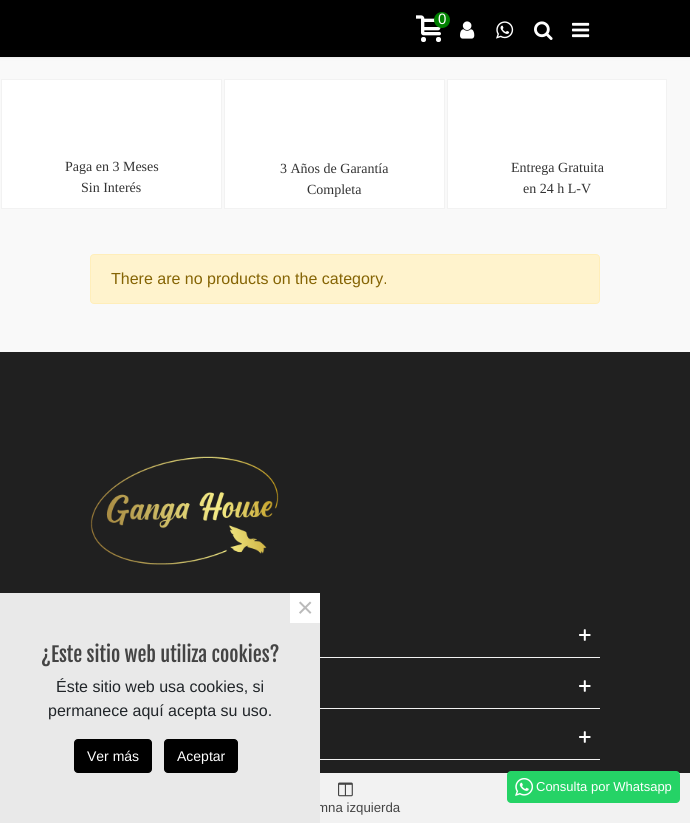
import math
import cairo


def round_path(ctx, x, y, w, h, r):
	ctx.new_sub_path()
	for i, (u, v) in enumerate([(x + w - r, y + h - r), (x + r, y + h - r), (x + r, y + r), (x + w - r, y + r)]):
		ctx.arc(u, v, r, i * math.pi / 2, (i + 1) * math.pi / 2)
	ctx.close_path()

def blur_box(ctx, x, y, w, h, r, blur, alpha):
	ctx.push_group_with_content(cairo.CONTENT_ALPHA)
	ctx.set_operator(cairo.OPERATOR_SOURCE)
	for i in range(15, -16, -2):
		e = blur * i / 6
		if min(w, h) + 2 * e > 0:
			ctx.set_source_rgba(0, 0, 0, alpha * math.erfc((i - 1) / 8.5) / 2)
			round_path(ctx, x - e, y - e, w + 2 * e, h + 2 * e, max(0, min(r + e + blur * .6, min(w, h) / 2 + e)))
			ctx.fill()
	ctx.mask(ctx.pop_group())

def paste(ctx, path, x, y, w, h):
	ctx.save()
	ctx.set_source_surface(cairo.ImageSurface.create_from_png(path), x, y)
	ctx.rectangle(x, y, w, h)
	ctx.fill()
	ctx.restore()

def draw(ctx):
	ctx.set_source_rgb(0.976, 0.976, 0.976)
	ctx.paint()
	ctx.set_source_rgb(0, 0, 0)
	blur_box(ctx, 0, 0, 690, 57, 0, 2, 0.1)
	ctx.set_source_rgb(0, 0, 0)
	ctx.rectangle(0, 0, 690, 57)
	ctx.fill()
	paste(ctx, 'media/1.png', 416, 15, 25, 27)
	ctx.set_source_rgb(0, 0.502, 0)
	ctx.arc(442, 20, 8, 0, 2 * math.pi)
	ctx.fill()
	ctx.select_font_face('Liberation Sans')
	ctx.set_font_size(15)
	ctx.set_source_rgb(1, 1, 1)
	ctx.move_to(438, 24)
	ctx.show_text('0')
	paste(ctx, 'media/2.png', 460, 21, 15, 18)
	paste(ctx, 'media/3.png', 496, 21, 18, 18)
	paste(ctx, 'media/4.png', 534, 21, 19, 19)
	paste(ctx, 'media/5.png', 572, 22, 18, 16)
	ctx.rectangle(1.5, 79.5, 220, 129)
	ctx.fill_preserve()
	ctx.set_source_rgb(0.949, 0.949, 0.949)
	ctx.set_line_width(1)
	ctx.stroke()
	ctx.select_font_face('Liberation Serif')
	ctx.set_font_size(14)
	ctx.set_source_rgb(0.2, 0.2, 0.2)
	ctx.move_to(65, 171)
	ctx.show_text('Paga en 3 Meses')
	ctx.move_to(81, 192)
	ctx.show_text('Sin Interés')
	ctx.set_source_rgb(1, 1, 1)
	ctx.rectangle(224.5, 79.5, 220, 129)
	ctx.fill_preserve()
	ctx.set_source_rgb(0.949, 0.949, 0.949)
	ctx.stroke()
	ctx.set_source_rgb(0.2, 0.2, 0.2)
	ctx.move_to(280, 173)
	ctx.show_text('3 Años de Garantía')
	ctx.move_to(307, 194)
	ctx.show_text('Completa')
	ctx.set_source_rgb(1, 1, 1)
	ctx.rectangle(447.5, 79.5, 219, 129)
	ctx.fill_preserve()
	ctx.set_source_rgb(0.949, 0.949, 0.949)
	ctx.stroke()
	ctx.set_source_rgb(0.2, 0.2, 0.2)
	ctx.move_to(511, 172)
	ctx.show_text('Entrega Gratuita')
	ctx.move_to(523, 193)
	ctx.show_text('en 24 h L-V')
	ctx.set_source_rgb(1, 0.953, 0.804)
	round_path(ctx, 90.5, 254.5, 509, 49, 3.5)
	ctx.fill_preserve()
	ctx.set_source_rgb(1, 0.933, 0.729)
	ctx.stroke()
	ctx.select_font_face('Liberation Sans')
	ctx.set_font_size(16)
	ctx.set_source_rgb(0.522, 0.392, 0.016)
	ctx.move_to(111, 284)
	ctx.show_text('There are no products on the category.')
	ctx.set_source_rgb(0.125, 0.125, 0.125)
	ctx.rectangle(0, 352, 690, 421)
	ctx.fill()
	paste(ctx, 'media/6.png', 90, 456, 189, 109)
	ctx.set_source_rgb(0.949, 0.949, 0.949)
	ctx.rectangle(320, 657, 280, 1)
	ctx.fill()
	paste(ctx, 'media/7.png', 579, 629, 12, 12)
	ctx.rectangle(320, 708, 280, 1)
	ctx.fill()
	paste(ctx, 'media/7.png', 579, 680, 12, 12)
	ctx.rectangle(320, 759, 280, 1)
	ctx.fill()
	paste(ctx, 'media/7.png', 579, 731, 12, 12)
	ctx.rectangle(320, 773, 370, 50)
	ctx.fill()
	paste(ctx, 'media/8.png', 338, 782, 15, 15)
	ctx.set_font_size(13.25)
	ctx.set_source_rgb(0.267, 0.267, 0.267)
	ctx.move_to(317, 812)
	ctx.show_text('mna izquierda')
	ctx.set_source_rgb(0.914, 0.914, 0.914)
	ctx.rectangle(0, 593, 320, 230)
	ctx.fill()
	ctx.set_source_rgb(1, 1, 1)
	ctx.rectangle(290, 593, 30, 30)
	ctx.fill()
	ctx.set_font_size(28)
	ctx.set_source_rgb(0.729, 0.729, 0.729)
	ctx.move_to(297, 617)
	ctx.show_text('×')
	ctx.select_font_face('Fjalla One')
	ctx.set_font_size(20)
	ctx.set_source_rgb(0.267, 0.267, 0.267)
	ctx.move_to(41, 662)
	ctx.show_text('¿Este sitio web utiliza cookies?')
	ctx.select_font_face('Liberation Sans')
	ctx.set_font_size(16)
	ctx.set_source_rgb(0.129, 0.145, 0.161)
	ctx.move_to(56, 692)
	ctx.show_text('Éste sitio web usa cookies, si')
	ctx.move_to(48, 716)
	ctx.show_text('permanece aquí acepta su uso.')
	ctx.set_source_rgb(0, 0, 0)
	round_path(ctx, 74.5, 739.5, 77, 33, 3.5)
	ctx.fill_preserve()
	ctx.stroke()
	ctx.set_font_size(14)
	ctx.set_source_rgb(1, 1, 1)
	ctx.move_to(87, 761)
	ctx.show_text('Ver más')
	ctx.set_source_rgb(0, 0, 0)
	round_path(ctx, 164.5, 739.5, 73, 33, 3.5)
	ctx.fill_preserve()
	ctx.stroke()
	ctx.set_source_rgb(1, 1, 1)
	ctx.move_to(177, 761)
	ctx.show_text('Aceptar')
	ctx.set_source_rgb(0.145, 0.827, 0.4)
	round_path(ctx, 507, 771, 173, 32, 4)
	ctx.fill()
	paste(ctx, 'media/9.png', 515, 778, 18, 18)
	ctx.set_font_size(13)
	ctx.set_source_rgb(1, 1, 1)
	ctx.move_to(536, 791)
	ctx.show_text('Consulta por Whatsapp')


surface = cairo.ImageSurface(cairo.FORMAT_RGB24, 690, 823)
ctx = cairo.Context(surface)
options = cairo.FontOptions()
options.set_hint_metrics(cairo.HINT_METRICS_OFF)
options.set_hint_style(cairo.HINT_STYLE_NONE)
ctx.set_font_options(options)
ctx.set_miter_limit(4)
draw(ctx)
surface.write_to_png('image.png')
